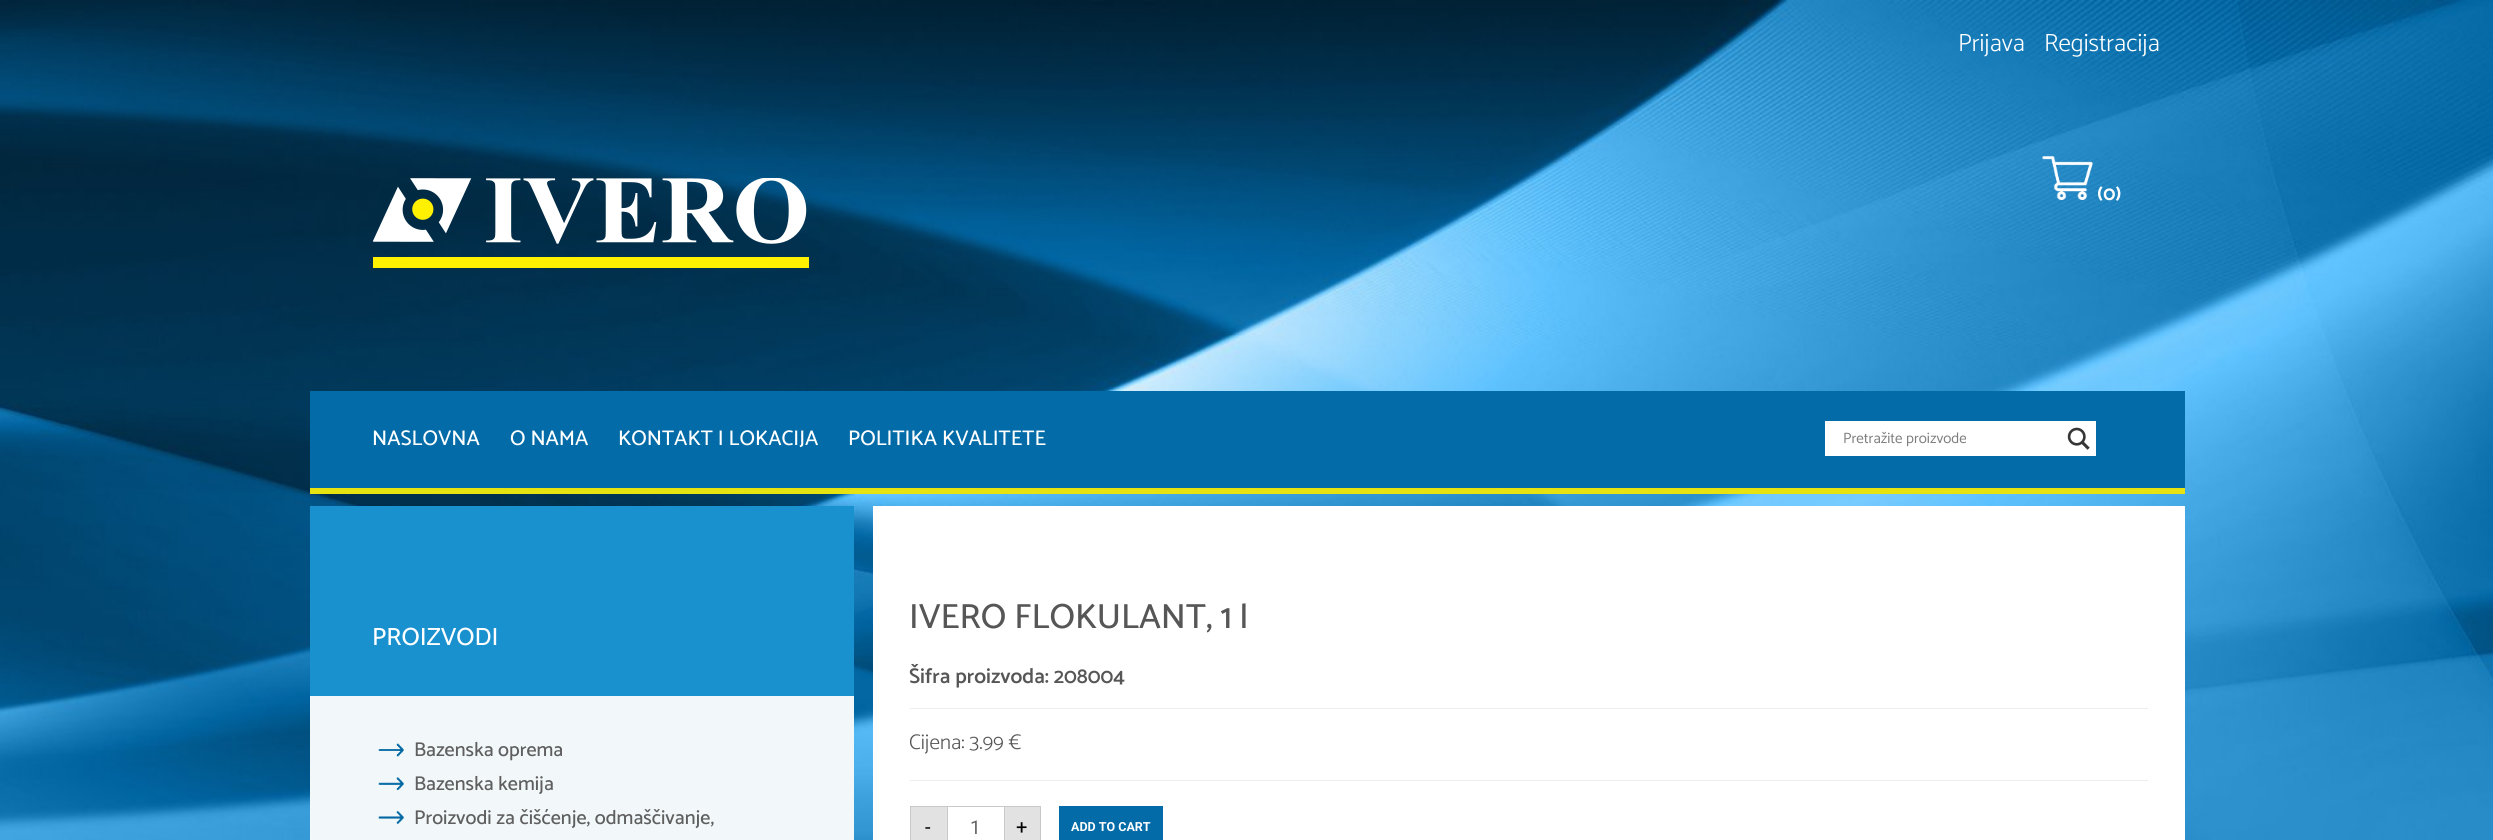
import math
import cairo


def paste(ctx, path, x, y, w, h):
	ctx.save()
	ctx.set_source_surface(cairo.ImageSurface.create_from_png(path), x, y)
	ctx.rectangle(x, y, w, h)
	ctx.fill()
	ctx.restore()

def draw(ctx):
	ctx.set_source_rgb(1, 1, 1)
	ctx.paint()
	paste(ctx, 'media/1.png', 0, 0, 2493, 840)
	ctx.select_font_face('Catamaran Light')
	ctx.set_font_size(25)
	ctx.set_source_rgb(1, 1, 1)
	ctx.move_to(1958, 51)
	ctx.show_text('Prijava')
	ctx.move_to(2044, 51)
	ctx.show_text('Registracija')
	paste(ctx, 'media/2.png', 373, 178, 436, 90)
	paste(ctx, 'media/3.png', 2042, 156, 51, 44)
	ctx.select_font_face('Catamaran', cairo.FONT_SLANT_NORMAL, cairo.FONT_WEIGHT_BOLD)
	ctx.set_font_size(20)
	ctx.move_to(2097, 200)
	ctx.show_text('(0)')
	ctx.set_source_rgb(0.012, 0.424, 0.659)
	ctx.rectangle(310, 391, 1875, 97)
	ctx.fill()
	ctx.set_source_rgb(0.906, 0.89, 0.067)
	ctx.rectangle(310, 488, 1875, 6)
	ctx.fill()
	ctx.select_font_face('Catamaran Medium')
	ctx.set_font_size(21.25)
	ctx.set_source_rgb(1, 1, 1)
	for x, y, s in [
		(372, 445, 'NASLOVNA'),
		(510, 445, 'O NAMA'),
		(618, 445, 'KONTAKT I LOKACIJA'),
		(848, 445, 'POLITIKA KVALITETE'),
	]:
		ctx.move_to(x, y)
		ctx.show_text(s)
	ctx.rectangle(1825, 421, 271, 35)
	ctx.fill()
	ctx.select_font_face('Catamaran')
	ctx.set_font_size(15)
	ctx.set_source_rgb(0.49, 0.49, 0.49)
	ctx.move_to(1843, 443)
	ctx.show_text('Pretražite proizvode')
	paste(ctx, 'media/4.png', 2067, 427, 23, 23)
	ctx.set_source_rgb(0.102, 0.569, 0.812)
	ctx.rectangle(310, 506, 544, 190)
	ctx.fill()
	ctx.select_font_face('Catamaran Medium')
	ctx.set_font_size(25)
	ctx.set_source_rgb(1, 1, 1)
	ctx.move_to(372, 645)
	ctx.show_text('PROIZVODI')
	ctx.set_source_rgb(0.949, 0.969, 0.98)
	ctx.rectangle(310, 696, 544, 144)
	ctx.fill()
	paste(ctx, 'media/5.png', 378, 743, 26, 14)
	ctx.set_font_size(20)
	ctx.set_source_rgb(0.373, 0.373, 0.373)
	ctx.move_to(414, 756)
	ctx.show_text('Bazenska oprema')
	paste(ctx, 'media/6.png', 378, 777, 26, 13)
	ctx.move_to(414, 790)
	ctx.show_text('Bazenska kemija')
	paste(ctx, 'media/7.png', 378, 811, 26, 13)
	ctx.move_to(414, 824)
	ctx.show_text('Proizvodi za čišćenje, odmaščivanje,')
	ctx.set_source_rgb(1, 1, 1)
	ctx.rectangle(873, 506, 1312, 334)
	ctx.fill()
	ctx.set_font_size(35)
	ctx.set_source_rgb(0.337, 0.337, 0.337)
	ctx.move_to(909, 628)
	ctx.show_text('IVERO FLOKULANT, 1 l')
	ctx.select_font_face('Catamaran SemiBold')
	ctx.set_font_size(21.25)
	ctx.move_to(909, 683)
	ctx.show_text('Šifra proizvoda: 208004')
	ctx.set_source_rgb(0.933, 0.933, 0.933)
	ctx.rectangle(910, 708, 1238, 1)
	ctx.fill()
	ctx.rectangle(910, 780, 1238, 1)
	ctx.fill()
	ctx.select_font_face('Catamaran Light')
	ctx.set_source_rgb(0.337, 0.337, 0.337)
	ctx.move_to(909, 749)
	ctx.show_text('Cijena: 3.99 €')
	ctx.set_source_rgb(0.886, 0.886, 0.886)
	ctx.rectangle(910.5, 806.5, 37, 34)
	ctx.fill_preserve()
	ctx.set_source_rgb(0.792, 0.788, 0.788)
	ctx.set_line_width(1)
	ctx.stroke()
	ctx.select_font_face('Roboto')
	ctx.set_font_size(20)
	ctx.set_source_rgb(0, 0, 0)
	ctx.move_to(925, 834)
	ctx.show_text('-')
	ctx.set_source_rgb(0.792, 0.788, 0.788)
	ctx.rectangle(948, 806, 56, 1)
	ctx.fill()
	ctx.set_font_size(19)
	ctx.set_source_rgb(0.4, 0.4, 0.4)
	ctx.move_to(970, 834)
	ctx.show_text('1')
	ctx.set_source_rgb(0.886, 0.886, 0.886)
	ctx.rectangle(1004.5, 806.5, 36, 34)
	ctx.fill_preserve()
	ctx.set_source_rgb(0.792, 0.788, 0.788)
	ctx.stroke()
	ctx.set_font_size(20)
	ctx.set_source_rgb(0, 0, 0)
	ctx.move_to(1016, 834)
	ctx.show_text('+')
	ctx.set_source_rgb(0.012, 0.424, 0.659)
	ctx.rectangle(1059, 806, 104, 34)
	ctx.fill()
	ctx.select_font_face('Roboto', cairo.FONT_SLANT_NORMAL, cairo.FONT_WEIGHT_BOLD)
	ctx.set_font_size(12.5)
	ctx.set_source_rgb(1, 1, 1)
	ctx.move_to(1071, 831)
	ctx.show_text('ADD TO CART')


surface = cairo.ImageSurface(cairo.FORMAT_RGB24, 2493, 840)
ctx = cairo.Context(surface)
options = cairo.FontOptions()
options.set_hint_metrics(cairo.HINT_METRICS_OFF)
options.set_hint_style(cairo.HINT_STYLE_NONE)
ctx.set_font_options(options)
ctx.set_miter_limit(4)
draw(ctx)
surface.write_to_png('image.png')
